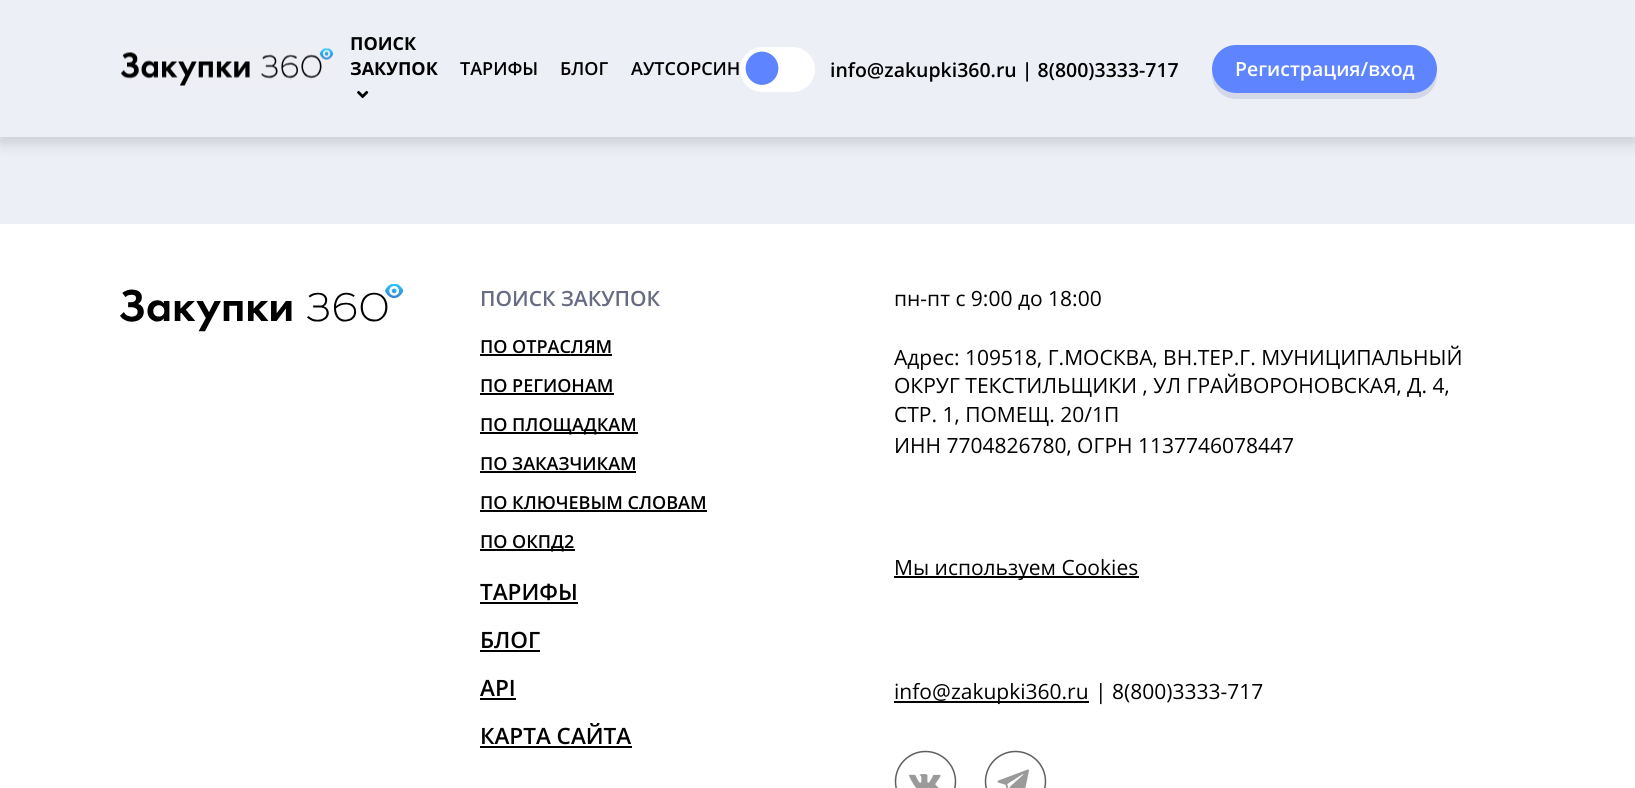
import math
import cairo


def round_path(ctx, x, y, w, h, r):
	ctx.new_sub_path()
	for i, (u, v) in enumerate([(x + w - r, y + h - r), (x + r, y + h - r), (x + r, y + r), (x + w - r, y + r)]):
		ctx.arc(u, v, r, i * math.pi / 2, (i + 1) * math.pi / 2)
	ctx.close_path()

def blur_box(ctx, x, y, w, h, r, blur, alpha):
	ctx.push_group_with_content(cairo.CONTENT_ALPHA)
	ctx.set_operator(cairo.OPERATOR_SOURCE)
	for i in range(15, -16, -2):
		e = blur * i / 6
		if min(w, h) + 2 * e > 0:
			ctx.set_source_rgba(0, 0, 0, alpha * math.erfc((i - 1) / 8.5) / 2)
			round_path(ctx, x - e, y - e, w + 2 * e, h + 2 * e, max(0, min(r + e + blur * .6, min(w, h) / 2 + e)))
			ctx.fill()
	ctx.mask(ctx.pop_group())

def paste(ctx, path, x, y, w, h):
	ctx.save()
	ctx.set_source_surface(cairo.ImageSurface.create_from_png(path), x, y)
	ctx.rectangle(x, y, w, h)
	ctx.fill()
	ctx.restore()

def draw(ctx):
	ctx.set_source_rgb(0.929, 0.937, 0.961)
	ctx.paint()
	ctx.set_source_rgb(0, 0, 0)
	blur_box(ctx, 0, 6, 1635, 137, 0, 7.5, 0.15)
	ctx.set_source_rgb(0.929, 0.937, 0.961)
	ctx.rectangle(0, 0, 1635, 137)
	ctx.fill()
	paste(ctx, 'media/1.png', 121, 48, 213, 38)
	ctx.select_font_face('Open Sans', cairo.FONT_SLANT_NORMAL, cairo.FONT_WEIGHT_BOLD)
	ctx.set_font_size(18)
	ctx.set_source_rgb(0, 0, 0)
	ctx.move_to(350, 50)
	ctx.show_text('ПОИСК')
	ctx.move_to(350, 75)
	ctx.show_text('ЗАКУПОК')
	paste(ctx, 'media/2.png', 357, 90, 12, 9)
	ctx.select_font_face('Open Sans SemiBold')
	for x, y, s in [
		(460, 75, 'ТАРИФЫ'),
		(560, 75, 'БЛОГ'),
		(631, 75, 'АУТСОРСИН'),
	]:
		ctx.move_to(x, y)
		ctx.show_text(s)
	ctx.set_source_rgb(1, 1, 1)
	round_path(ctx, 740, 47, 75, 45, 22.5)
	ctx.fill()
	ctx.set_source_rgb(0.369, 0.518, 1)
	ctx.new_path()
	ctx.move_to(750.5, 56.5)
	ctx.curve_to(757, 50, 767, 50, 773.5, 56.5)
	ctx.curve_to(780, 63, 780, 73.5, 773.5, 80)
	ctx.curve_to(767, 86.5, 757, 86.5, 750.5, 80)
	ctx.curve_to(744, 73.5, 744, 63, 750.5, 56.5)
	ctx.close_path()
	ctx.fill()
	ctx.set_font_size(19.5)
	ctx.set_source_rgb(0, 0, 0)
	ctx.move_to(830, 77)
	ctx.show_text('info@zakupki360.ru | 8(800)3333-717')
	ctx.set_source_rgb(0.827, 0.847, 0.91)
	ctx.new_path()
	ctx.move_to(1212, 72)
	ctx.line_to(1212, 75)
	ctx.curve_to(1212, 88, 1223, 99, 1236, 99)
	ctx.line_to(1413, 99)
	ctx.curve_to(1426, 99, 1437, 88, 1437, 75)
	ctx.line_to(1437, 72)
	ctx.curve_to(1435, 84, 1425, 93, 1413, 93)
	ctx.line_to(1236, 93)
	ctx.curve_to(1224, 93, 1214, 84, 1212, 72)
	ctx.close_path()
	ctx.fill()
	ctx.set_source_rgb(0.369, 0.518, 1)
	round_path(ctx, 1212, 45, 225, 48, 24)
	ctx.fill()
	ctx.set_source_rgb(1, 1, 1)
	ctx.move_to(1235, 76)
	ctx.show_text('Регистрация/вход')
	ctx.rectangle(0, 224, 1635, 564)
	ctx.fill()
	paste(ctx, 'media/3.png', 120, 284, 283, 48)
	ctx.set_font_size(21)
	ctx.set_source_rgb(0.404, 0.424, 0.51)
	ctx.move_to(480, 306)
	ctx.show_text('ПОИСК ЗАКУПОК')
	ctx.set_font_size(18)
	ctx.set_source_rgb(0, 0, 0)
	ctx.move_to(480, 353)
	ctx.show_text('ПО ОТРАСЛЯМ')
	ctx.rectangle(480, 354, 132, 2)
	ctx.fill()
	ctx.move_to(480, 392)
	ctx.show_text('ПО РЕГИОНАМ')
	ctx.rectangle(480, 393, 134, 2)
	ctx.fill()
	ctx.rectangle(480, 432, 158, 2)
	ctx.fill()
	ctx.move_to(480, 431)
	ctx.show_text('ПО ПЛОЩАДКАМ')
	ctx.move_to(480, 470)
	ctx.show_text('ПО ЗАКАЗЧИКАМ')
	ctx.rectangle(480, 471, 156, 2)
	ctx.fill()
	ctx.move_to(480, 509)
	ctx.show_text('ПО КЛЮЧЕВЫМ СЛОВАМ')
	ctx.rectangle(480, 510, 227, 2)
	ctx.fill()
	ctx.rectangle(480, 549, 95, 2)
	ctx.fill()
	ctx.move_to(480, 548)
	ctx.show_text('ПО ОКПД2')
	ctx.set_font_size(22.5)
	ctx.move_to(480, 600)
	ctx.show_text('ТАРИФЫ')
	ctx.rectangle(480, 602, 98, 2)
	ctx.fill()
	ctx.move_to(480, 648)
	ctx.show_text('БЛОГ')
	ctx.rectangle(480, 650, 60, 2)
	ctx.fill()
	ctx.move_to(480, 696)
	ctx.show_text('API')
	ctx.rectangle(480, 698, 36, 2)
	ctx.fill()
	ctx.move_to(480, 744)
	ctx.show_text('КАРТА САЙТА')
	ctx.rectangle(480, 746, 152, 2)
	ctx.fill()
	ctx.select_font_face('Open Sans')
	ctx.set_font_size(21)
	for x, y, s in [
		(894, 306, 'пн-пт с 9:00 до 18:00'),
		(894, 365, 'Адрес: 109518, Г.МОСКВА, ВН.ТЕР.Г. МУНИЦИПАЛЬНЫЙ'),
		(894, 393, 'ОКРУГ ТЕКСТИЛЬЩИКИ , УЛ ГРАЙВОРОНОВСКАЯ, Д. 4,'),
		(894, 422, 'СТР. 1, ПОМЕЩ. 20/1П'),
		(894, 453, 'ИНН 7704826780, ОГРН 1137746078447'),
	]:
		ctx.move_to(x, y)
		ctx.show_text(s)
	ctx.rectangle(894, 576, 245, 2)
	ctx.fill()
	ctx.move_to(894, 575)
	ctx.show_text('Мы используем Cookies')
	ctx.rectangle(894, 701, 195, 2)
	ctx.fill()
	for x, y, s in [
		(894, 699, 'info@zakupki360.ru'),
		(1095, 699, '|'),
		(1112, 699, '8(800)3333-717'),
	]:
		ctx.move_to(x, y)
		ctx.show_text(s)
	paste(ctx, 'media/4.png', 894, 750, 63, 38)
	paste(ctx, 'media/5.png', 984, 750, 63, 38)


surface = cairo.ImageSurface(cairo.FORMAT_RGB24, 1635, 788)
ctx = cairo.Context(surface)
options = cairo.FontOptions()
options.set_hint_metrics(cairo.HINT_METRICS_OFF)
options.set_hint_style(cairo.HINT_STYLE_NONE)
ctx.set_font_options(options)
ctx.set_miter_limit(4)
draw(ctx)
surface.write_to_png('image.png')
